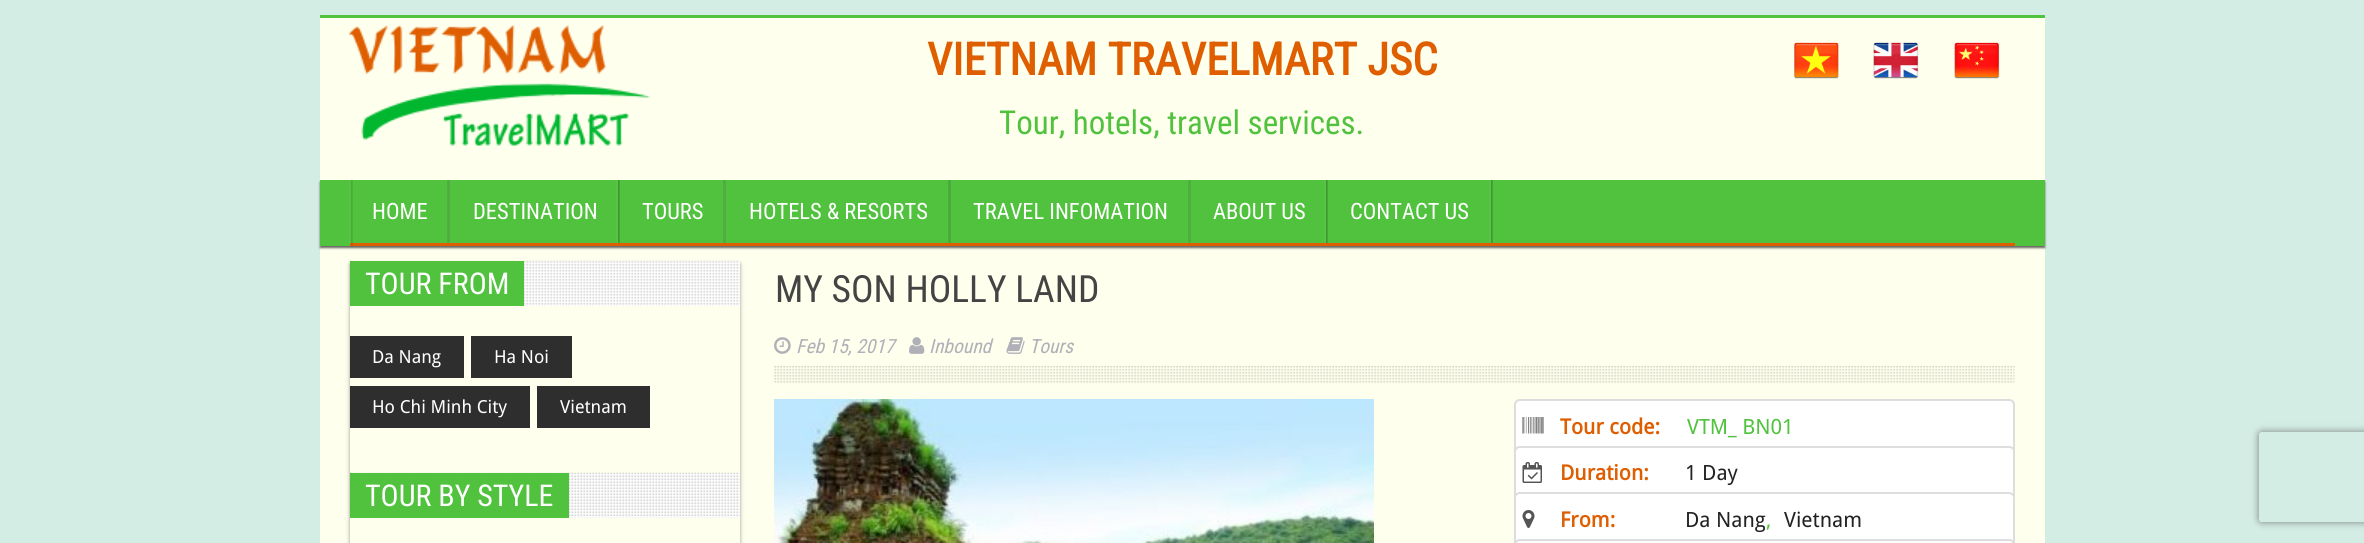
import math
import cairo


def round_path(ctx, x, y, w, h, r):
	ctx.new_sub_path()
	for i, (u, v) in enumerate([(x + w - r, y + h - r), (x + r, y + h - r), (x + r, y + r), (x + w - r, y + r)]):
		ctx.arc(u, v, r, i * math.pi / 2, (i + 1) * math.pi / 2)
	ctx.close_path()

def blur_box(ctx, x, y, w, h, r, blur, alpha):
	ctx.push_group_with_content(cairo.CONTENT_ALPHA)
	ctx.set_operator(cairo.OPERATOR_SOURCE)
	for i in range(15, -16, -2):
		e = blur * i / 6
		if min(w, h) + 2 * e > 0:
			ctx.set_source_rgba(0, 0, 0, alpha * math.erfc((i - 1) / 8.5) / 2)
			round_path(ctx, x - e, y - e, w + 2 * e, h + 2 * e, max(0, min(r + e + blur * .6, min(w, h) / 2 + e)))
			ctx.fill()
	ctx.mask(ctx.pop_group())

def paste(ctx, path, x, y, w, h):
	ctx.save()
	ctx.set_source_surface(cairo.ImageSurface.create_from_png(path), x, y)
	ctx.rectangle(x, y, w, h)
	ctx.fill()
	ctx.restore()

def draw(ctx):
	ctx.set_source_rgb(0.827, 0.929, 0.898)
	ctx.paint()
	ctx.set_source_rgb(1, 1, 0.933)
	ctx.rectangle(320, 18, 1725, 525)
	ctx.fill()
	ctx.set_source_rgb(0.314, 0.761, 0.239)
	ctx.rectangle(320, 15, 1725, 3)
	ctx.fill()
	paste(ctx, 'media/1.png', 349, 25, 301, 121)
	ctx.select_font_face('Roboto Condensed', cairo.FONT_SLANT_NORMAL, cairo.FONT_WEIGHT_BOLD)
	ctx.set_font_size(45)
	ctx.set_source_rgb(0.871, 0.369, 0)
	ctx.move_to(927, 75)
	ctx.show_text('VIETNAM TRAVELMART JSC')
	ctx.select_font_face('Roboto Condensed')
	ctx.set_font_size(33)
	ctx.set_source_rgb(0.314, 0.761, 0.239)
	ctx.move_to(999, 134)
	ctx.show_text('Tour, hotels, travel services.')
	paste(ctx, 'media/2.png', 1794, 42, 45, 37)
	paste(ctx, 'media/3.png', 1873, 42, 46, 37)
	paste(ctx, 'media/4.png', 1954, 42, 46, 37)
	ctx.set_source_rgb(0.196, 0.196, 0.196)
	blur_box(ctx, 320, 182, 1725, 66, 0, 1, 0.75)
	ctx.set_source_rgb(0.314, 0.761, 0.239)
	ctx.rectangle(320, 180, 1725, 66)
	ctx.fill()
	ctx.set_source_rgb(0.871, 0.369, 0)
	ctx.rectangle(350, 243, 1665, 3)
	ctx.fill()
	paste(ctx, 'media/5.png', 349, 180, 4, 66)
	ctx.set_source_rgb(0.314, 0.682, 0.251)
	ctx.rectangle(447, 180, 3, 63)
	ctx.fill()
	ctx.set_font_size(22.5)
	ctx.set_source_rgb(1, 1, 1)
	ctx.move_to(372, 219)
	ctx.show_text('HOME')
	paste(ctx, 'media/6.png', 616, 180, 4, 63)
	paste(ctx, 'media/7.png', 616, 180, 4, 63)
	ctx.move_to(473, 219)
	ctx.show_text('DESTINATION')
	ctx.set_source_rgb(0.314, 0.682, 0.251)
	ctx.rectangle(723, 180, 3, 63)
	ctx.fill()
	ctx.set_source_rgb(1, 1, 1)
	ctx.move_to(642, 219)
	ctx.show_text('TOURS')
	ctx.set_source_rgb(0.298, 0.663, 0.239)
	ctx.rectangle(948, 180, 3, 63)
	ctx.fill()
	ctx.set_source_rgb(1, 1, 1)
	ctx.move_to(749, 219)
	ctx.show_text('HOTELS & RESORTS')
	ctx.set_source_rgb(0.314, 0.682, 0.251)
	ctx.rectangle(1188, 180, 3, 63)
	ctx.fill()
	ctx.set_source_rgb(1, 1, 1)
	ctx.move_to(973, 219)
	ctx.show_text('TRAVEL INFOMATION')
	paste(ctx, 'media/6.png', 1324, 180, 4, 63)
	paste(ctx, 'media/7.png', 1324, 180, 4, 63)
	ctx.move_to(1213, 219)
	ctx.show_text('ABOUT US')
	paste(ctx, 'media/6.png', 1489, 180, 4, 63)
	paste(ctx, 'media/7.png', 1489, 180, 4, 63)
	ctx.move_to(1350, 219)
	ctx.show_text('CONTACT US')
	ctx.save()
	ctx.set_fill_rule(cairo.FILL_RULE_EVEN_ODD)
	ctx.new_path()
	ctx.move_to(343, 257)
	ctx.line_to(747, 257)
	ctx.line_to(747, 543)
	ctx.line_to(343, 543)
	ctx.close_path()
	ctx.move_to(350, 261)
	ctx.line_to(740, 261)
	ctx.line_to(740, 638)
	ctx.line_to(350, 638)
	ctx.close_path()
	ctx.clip()
	ctx.set_source_rgb(0, 0, 0)
	blur_box(ctx, 350, 264, 390, 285, 0, 2, 0.4)
	ctx.restore()
	ctx.rectangle(524, 261, 216, 45)
	ctx.fill()
	paste(ctx, 'media/8.png', 349, 261, 391, 45)
	ctx.set_source_rgb(0.314, 0.761, 0.239)
	ctx.rectangle(350, 261, 174, 45)
	ctx.fill()
	ctx.set_font_size(30)
	ctx.set_source_rgb(1, 1, 1)
	ctx.move_to(365, 294)
	ctx.show_text('TOUR FROM')
	ctx.set_source_rgb(0.18, 0.18, 0.18)
	ctx.rectangle(350, 336, 114, 42)
	ctx.fill()
	ctx.select_font_face('Droid Sans')
	ctx.set_font_size(18)
	ctx.set_source_rgb(1, 1, 1)
	ctx.move_to(372, 363)
	ctx.show_text('Da Nang')
	ctx.set_source_rgb(0.18, 0.18, 0.18)
	ctx.rectangle(471, 336, 101, 42)
	ctx.fill()
	ctx.set_source_rgb(1, 1, 1)
	ctx.move_to(494, 363)
	ctx.show_text('Ha Noi')
	ctx.set_source_rgb(0.18, 0.18, 0.18)
	ctx.rectangle(350, 386, 180, 42)
	ctx.fill()
	ctx.set_source_rgb(1, 1, 1)
	ctx.move_to(372, 413)
	ctx.show_text('Ho Chi Minh City')
	ctx.set_source_rgb(0.18, 0.18, 0.18)
	ctx.rectangle(537, 386, 113, 42)
	ctx.fill()
	ctx.set_source_rgb(1, 1, 1)
	ctx.move_to(560, 413)
	ctx.show_text('Vietnam')
	ctx.rectangle(569, 473, 171, 45)
	ctx.fill()
	paste(ctx, 'media/9.png', 349, 472, 391, 46)
	ctx.set_source_rgb(0.314, 0.761, 0.239)
	ctx.rectangle(350, 473, 219, 45)
	ctx.fill()
	ctx.select_font_face('Roboto Condensed')
	ctx.set_font_size(30)
	ctx.set_source_rgb(1, 1, 1)
	ctx.move_to(365, 506)
	ctx.show_text('TOUR BY STYLE')
	paste(ctx, 'media/10.png', 774, 366, 1241, 17)
	ctx.set_font_size(37.5)
	ctx.set_source_rgb(0.267, 0.267, 0.267)
	ctx.move_to(775, 302)
	ctx.show_text('MY SON HOLLY LAND')
	paste(ctx, 'media/11.png', 774, 337, 17, 17)
	ctx.select_font_face('Roboto Condensed', cairo.FONT_SLANT_ITALIC)
	ctx.set_font_size(19.5)
	ctx.set_source_rgb(0.69, 0.69, 0.722)
	ctx.move_to(796, 353)
	ctx.show_text('Feb 15, 2017')
	paste(ctx, 'media/12.png', 909, 337, 16, 17)
	ctx.move_to(929, 353)
	ctx.show_text('Inbound')
	paste(ctx, 'media/13.png', 1006, 337, 19, 17)
	ctx.move_to(1029, 353)
	ctx.show_text('Tours')
	paste(ctx, 'media/14.png', 774, 399, 600, 144)
	ctx.set_source_rgb(1, 1, 1)
	ctx.new_path()
	ctx.move_to(1520, 400)
	ctx.line_to(2009, 400)
	ctx.curve_to(2012, 400, 2014, 402, 2014, 405)
	ctx.line_to(2014, 452)
	ctx.line_to(1515, 452)
	ctx.line_to(1515, 405)
	ctx.curve_to(1515, 402, 1517, 400, 1520, 400)
	ctx.close_path()
	ctx.fill_preserve()
	ctx.set_source_rgb(0.867, 0.867, 0.867)
	ctx.stroke()
	paste(ctx, 'media/15.png', 1522, 417, 22, 17)
	ctx.select_font_face('Droid Sans', cairo.FONT_SLANT_NORMAL, cairo.FONT_WEIGHT_BOLD)
	ctx.set_font_size(21)
	ctx.set_source_rgb(0.871, 0.369, 0)
	ctx.move_to(1560, 434)
	ctx.show_text('Tour code:')
	ctx.select_font_face('Droid Sans')
	ctx.set_source_rgb(0.314, 0.761, 0.239)
	ctx.move_to(1687, 434)
	ctx.show_text('VTM_ BN01')
	ctx.set_source_rgb(1, 1, 1)
	ctx.new_path()
	ctx.move_to(1520, 447)
	ctx.line_to(2009, 447)
	ctx.curve_to(2012, 447, 2014, 449, 2014, 452)
	ctx.line_to(2014, 499)
	ctx.line_to(1515, 499)
	ctx.line_to(1515, 452)
	ctx.curve_to(1515, 449, 1517, 447, 1520, 447)
	ctx.close_path()
	ctx.fill_preserve()
	ctx.set_source_rgb(0.867, 0.867, 0.867)
	ctx.stroke()
	paste(ctx, 'media/16.png', 1522, 462, 20, 21)
	ctx.select_font_face('Droid Sans', cairo.FONT_SLANT_NORMAL, cairo.FONT_WEIGHT_BOLD)
	ctx.set_source_rgb(0.871, 0.369, 0)
	ctx.move_to(1560, 480)
	ctx.show_text('Duration:')
	ctx.select_font_face('Droid Sans')
	ctx.set_source_rgb(0.133, 0.133, 0.133)
	ctx.move_to(1685, 480)
	ctx.show_text('1 Day')
	ctx.set_source_rgb(1, 1, 1)
	ctx.new_path()
	ctx.move_to(1520, 493)
	ctx.line_to(2009, 493)
	ctx.curve_to(2012, 493, 2014, 495, 2014, 498)
	ctx.line_to(2014, 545)
	ctx.line_to(1515, 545)
	ctx.line_to(1515, 498)
	ctx.curve_to(1515, 495, 1517, 493, 1520, 493)
	ctx.close_path()
	ctx.fill_preserve()
	ctx.set_source_rgb(0.867, 0.867, 0.867)
	ctx.stroke()
	paste(ctx, 'media/17.png', 1522, 510, 13, 18)
	ctx.select_font_face('Droid Sans', cairo.FONT_SLANT_NORMAL, cairo.FONT_WEIGHT_BOLD)
	ctx.set_source_rgb(0.871, 0.369, 0)
	ctx.move_to(1560, 527)
	ctx.show_text('From:')
	ctx.select_font_face('Droid Sans')
	ctx.set_source_rgb(0.133, 0.133, 0.133)
	ctx.move_to(1685, 527)
	ctx.show_text('Da Nang')
	ctx.set_source_rgb(0.314, 0.761, 0.239)
	ctx.move_to(1766, 527)
	ctx.show_text(',')
	ctx.set_source_rgb(0.133, 0.133, 0.133)
	ctx.move_to(1784, 527)
	ctx.show_text('Vietnam')
	ctx.set_source_rgb(1, 1, 1)
	ctx.new_path()
	ctx.move_to(1520, 540)
	ctx.line_to(2009, 540)
	ctx.curve_to(2012, 540, 2014, 542, 2014, 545)
	ctx.line_to(2014, 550)
	ctx.line_to(1515, 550)
	ctx.line_to(1515, 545)
	ctx.curve_to(1515, 542, 1517, 540, 1520, 540)
	ctx.close_path()
	ctx.fill_preserve()
	ctx.set_source_rgb(0.867, 0.867, 0.867)
	ctx.stroke()
	ctx.save()
	ctx.set_fill_rule(cairo.FILL_RULE_EVEN_ODD)
	ctx.new_path()
	ctx.move_to(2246, 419)
	ctx.line_to(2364, 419)
	ctx.line_to(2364, 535)
	ctx.line_to(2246, 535)
	ctx.close_path()
	ctx.move_to(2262, 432)
	ctx.line_to(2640, 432)
	ctx.curve_to(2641.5, 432, 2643, 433.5, 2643, 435)
	ctx.line_to(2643, 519)
	ctx.curve_to(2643, 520.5, 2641.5, 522, 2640, 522)
	ctx.line_to(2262, 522)
	ctx.curve_to(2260.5, 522, 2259, 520.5, 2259, 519)
	ctx.line_to(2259, 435)
	ctx.curve_to(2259, 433.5, 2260.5, 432, 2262, 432)
	ctx.close_path()
	ctx.clip()
	ctx.set_source_rgb(0.502, 0.502, 0.502)
	blur_box(ctx, 2259, 432, 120, 90, 3, 4, 1)
	ctx.restore()


surface = cairo.ImageSurface(cairo.FORMAT_RGB24, 2364, 543)
ctx = cairo.Context(surface)
options = cairo.FontOptions()
options.set_hint_metrics(cairo.HINT_METRICS_OFF)
options.set_hint_style(cairo.HINT_STYLE_NONE)
ctx.set_font_options(options)
ctx.set_miter_limit(4)
draw(ctx)
surface.write_to_png('image.png')
